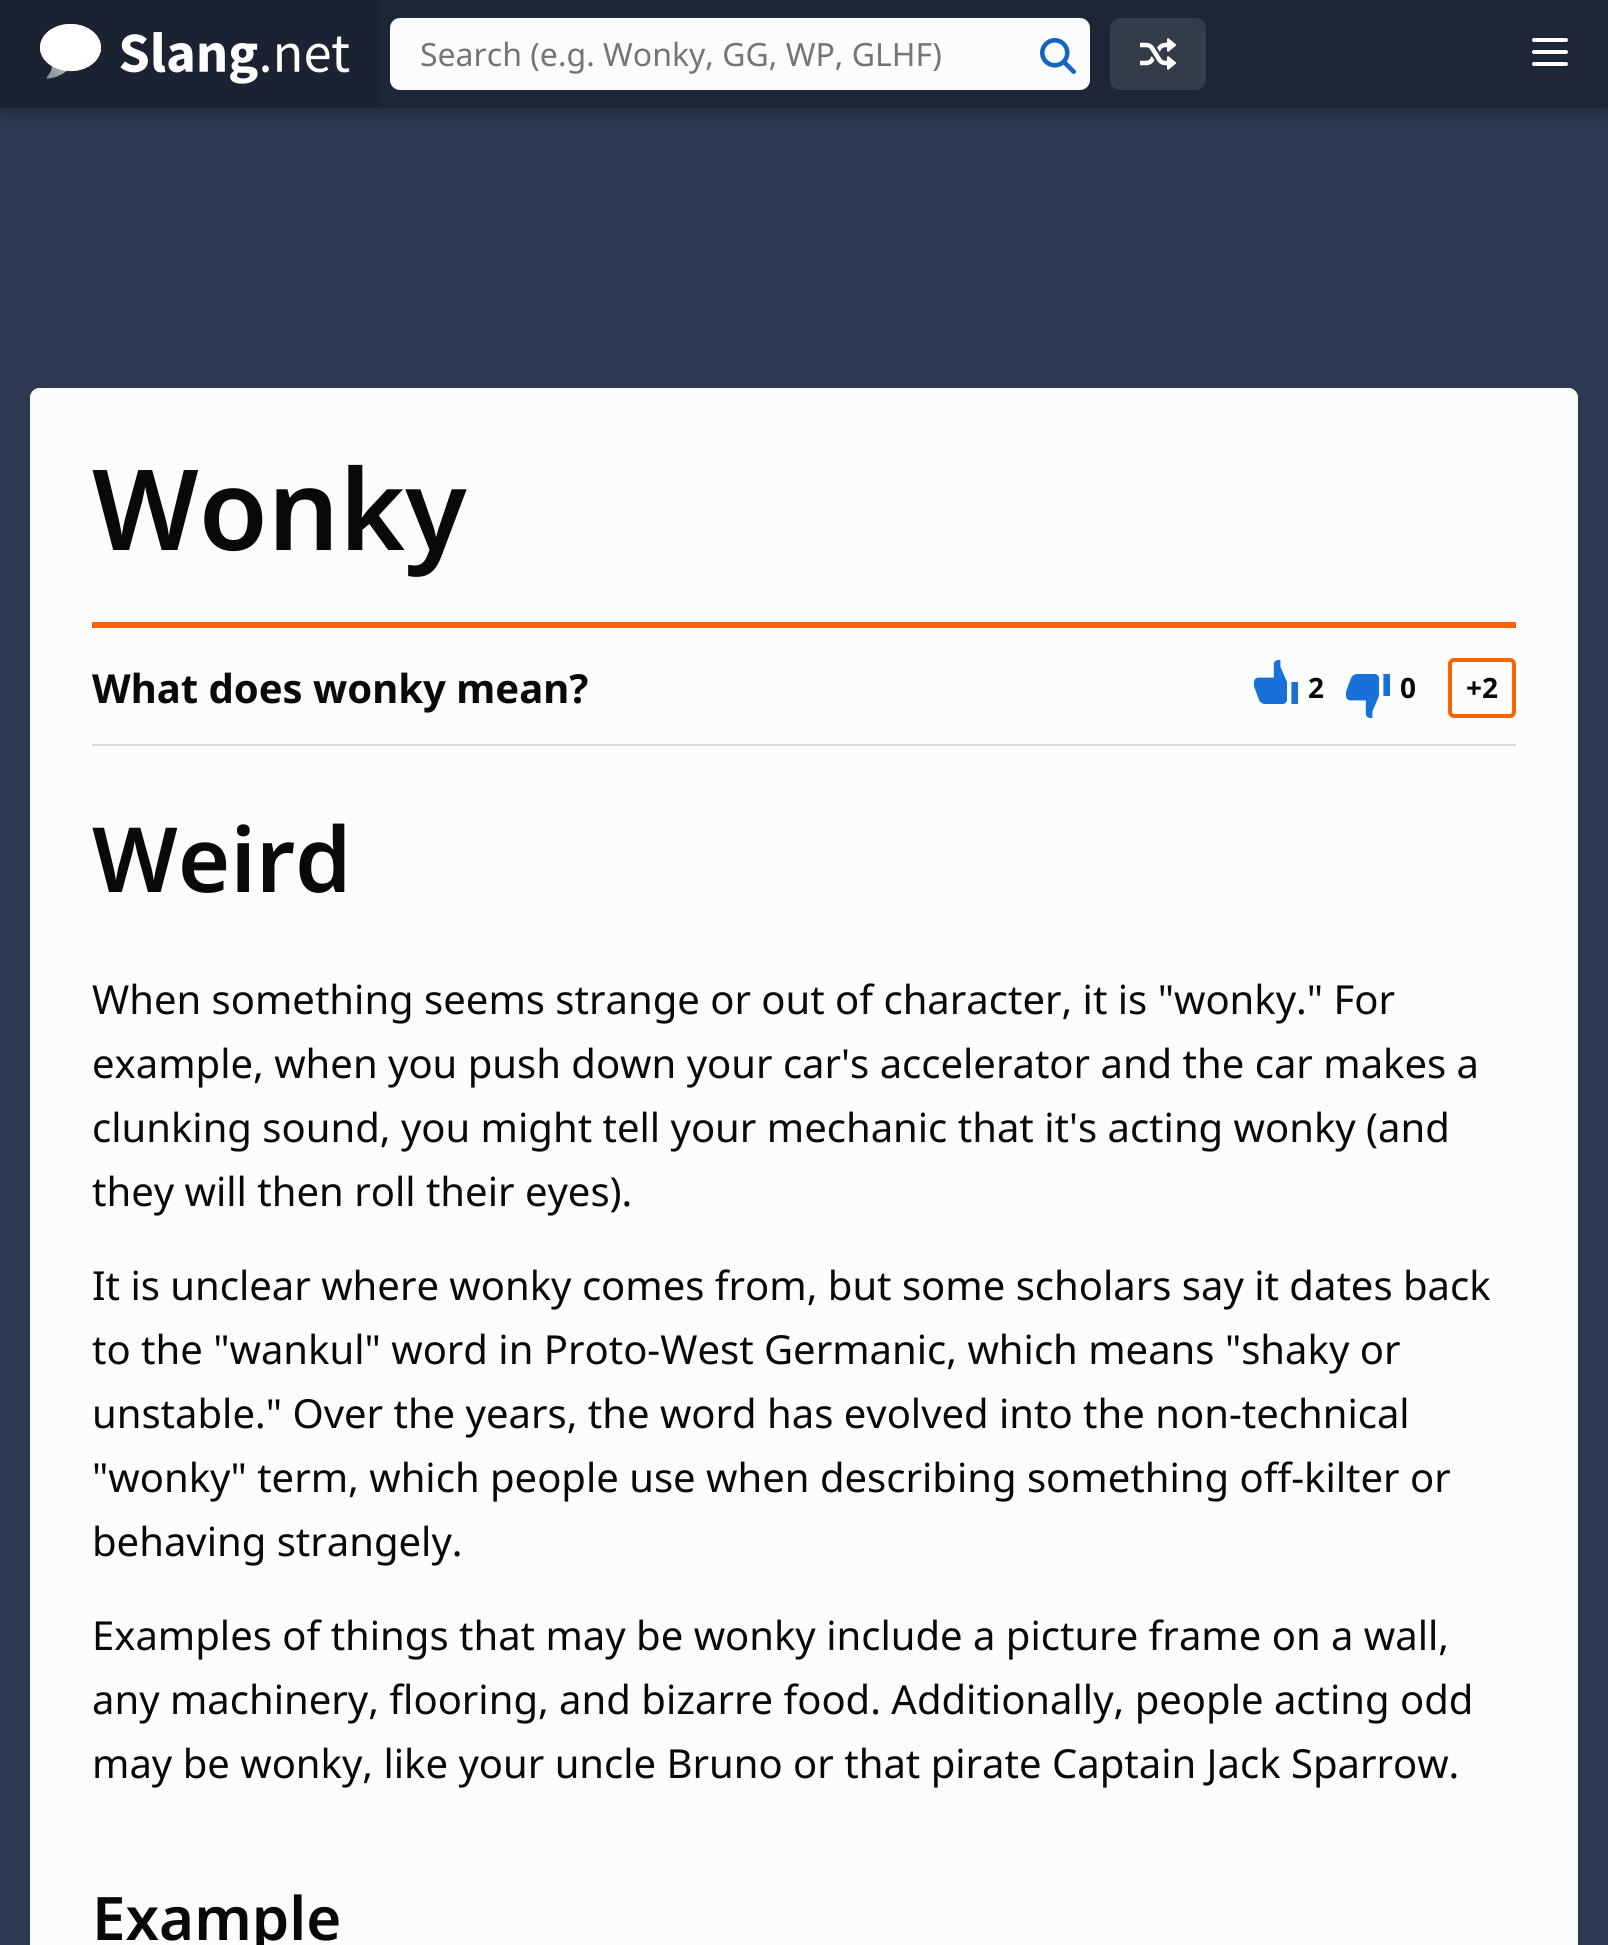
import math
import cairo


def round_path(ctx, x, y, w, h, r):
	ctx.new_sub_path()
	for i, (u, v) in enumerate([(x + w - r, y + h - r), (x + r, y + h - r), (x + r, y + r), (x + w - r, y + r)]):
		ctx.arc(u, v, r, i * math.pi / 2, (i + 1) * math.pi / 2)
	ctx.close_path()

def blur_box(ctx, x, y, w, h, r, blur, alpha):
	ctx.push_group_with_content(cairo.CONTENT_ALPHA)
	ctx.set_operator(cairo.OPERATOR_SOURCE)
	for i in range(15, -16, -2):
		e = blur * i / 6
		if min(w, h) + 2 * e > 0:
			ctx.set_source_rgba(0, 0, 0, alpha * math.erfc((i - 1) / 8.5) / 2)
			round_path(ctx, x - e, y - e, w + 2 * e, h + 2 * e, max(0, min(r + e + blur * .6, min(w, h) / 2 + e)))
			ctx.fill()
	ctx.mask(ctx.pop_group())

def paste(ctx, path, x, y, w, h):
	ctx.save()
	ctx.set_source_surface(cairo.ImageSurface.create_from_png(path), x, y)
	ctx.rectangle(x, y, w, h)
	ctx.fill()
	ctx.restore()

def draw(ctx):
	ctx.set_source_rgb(0.173, 0.224, 0.314)
	ctx.paint()
	ctx.set_source_rgb(0.039, 0.039, 0.039)
	blur_box(ctx, 0, 0, 1608, 108, 0, 10, 0.5)
	ctx.set_source_rgb(0.114, 0.149, 0.212)
	ctx.rectangle(380, 0, 1228, 108)
	ctx.fill()
	ctx.set_source_rgb(0.106, 0.137, 0.196)
	ctx.rectangle(0, 0, 380, 108)
	ctx.fill()
	paste(ctx, 'media/1.png', 40, 24, 310, 60)
	ctx.set_source_rgb(0.984, 0.988, 0.992)
	round_path(ctx, 390, 18, 700, 72, 10)
	ctx.fill()
	ctx.select_font_face('Noto Sans')
	ctx.set_font_size(32)
	ctx.set_source_rgb(0.459, 0.459, 0.459)
	ctx.move_to(420, 66)
	ctx.show_text('Search (e.g. Wonky, GG, WP, GLHF)')
	paste(ctx, 'media/2.png', 1040, 38, 36, 36)
	ctx.set_source_rgb(0.204, 0.235, 0.29)
	round_path(ctx, 1110, 18, 96, 72, 10)
	ctx.fill()
	paste(ctx, 'media/3.png', 1140, 38, 36, 32)
	paste(ctx, 'media/4.png', 1532, 38, 36, 28)
	ctx.set_source_rgb(0.984, 0.988, 0.992)
	round_path(ctx, 30, 388, 1548, 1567, 10)
	ctx.fill()
	ctx.new_path()
	ctx.move_to(40, 388)
	ctx.line_to(1568, 388)
	ctx.curve_to(1573.5, 388, 1578, 392.5, 1578, 398)
	ctx.line_to(1578, 630)
	ctx.line_to(30, 630)
	ctx.line_to(30, 398)
	ctx.curve_to(30, 392.5, 34.5, 388, 40, 388)
	ctx.close_path()
	ctx.fill()
	ctx.set_source_rgb(0.969, 0.392, 0.008)
	ctx.rectangle(92, 622, 1424, 6)
	ctx.fill()
	ctx.select_font_face('Noto Sans SemiBold')
	ctx.set_font_size(112)
	ctx.set_source_rgb(0.039, 0.039, 0.039)
	ctx.move_to(92, 550)
	ctx.show_text('Wonky')
	ctx.select_font_face('Noto Sans', cairo.FONT_SLANT_NORMAL, cairo.FONT_WEIGHT_BOLD)
	ctx.set_font_size(40)
	ctx.move_to(92, 703)
	ctx.show_text('What does wonky mean?')
	paste(ctx, 'media/5.png', 1254, 660, 44, 44)
	ctx.set_font_size(28)
	ctx.move_to(1308, 698)
	ctx.show_text('2')
	paste(ctx, 'media/6.png', 1346, 674, 44, 44)
	ctx.move_to(1400, 698)
	ctx.show_text('0')
	round_path(ctx, 1450, 660, 64, 56, 4)
	ctx.set_source_rgb(0.969, 0.392, 0.008)
	ctx.set_line_width(4)
	ctx.stroke()
	ctx.set_source_rgb(0.039, 0.039, 0.039)
	ctx.move_to(1466, 698)
	ctx.show_text('+2')
	ctx.set_source_rgb(0.851, 0.863, 0.878)
	ctx.rectangle(92, 744, 1424, 2)
	ctx.fill()
	ctx.select_font_face('Noto Sans SemiBold')
	ctx.set_font_size(90)
	ctx.set_source_rgb(0.039, 0.039, 0.039)
	ctx.move_to(92, 892)
	ctx.show_text('Weird')
	ctx.select_font_face('Noto Sans')
	ctx.set_font_size(40)
	for x, y, s in [
		(92, 1014, 'When something seems strange or out of character, it is "wonky." For'),
		(92, 1078, 'example, when you push down your car\'s accelerator and the car makes a'),
		(92, 1142, 'clunking sound, you might tell your mechanic that it\'s acting wonky (and'),
		(92, 1206, 'they will then roll their eyes).'),
		(92, 1300, 'It is unclear where wonky comes from, but some scholars say it dates back'),
		(92, 1364, 'to the "wankul" word in Proto-West Germanic, which means "shaky or'),
		(92, 1428, 'unstable." Over the years, the word has evolved into the non-technical'),
		(92, 1492, '"wonky" term, which people use when describing something off-kilter or'),
		(92, 1556, 'behaving strangely.'),
		(92, 1650, 'Examples of things that may be wonky include a picture frame on a wall,'),
		(92, 1714, 'any machinery, flooring, and bizarre food. Additionally, people acting odd'),
		(92, 1778, 'may be wonky, like your uncle Bruno or that pirate Captain Jack Sparrow.'),
	]:
		ctx.move_to(x, y)
		ctx.show_text(s)
	ctx.select_font_face('Noto Sans SemiBold')
	ctx.set_font_size(60)
	ctx.move_to(92, 1940)
	ctx.show_text('Example')


surface = cairo.ImageSurface(cairo.FORMAT_RGB24, 1608, 1945)
ctx = cairo.Context(surface)
options = cairo.FontOptions()
options.set_hint_metrics(cairo.HINT_METRICS_OFF)
options.set_hint_style(cairo.HINT_STYLE_NONE)
ctx.set_font_options(options)
ctx.set_miter_limit(4)
draw(ctx)
surface.write_to_png('image.png')
